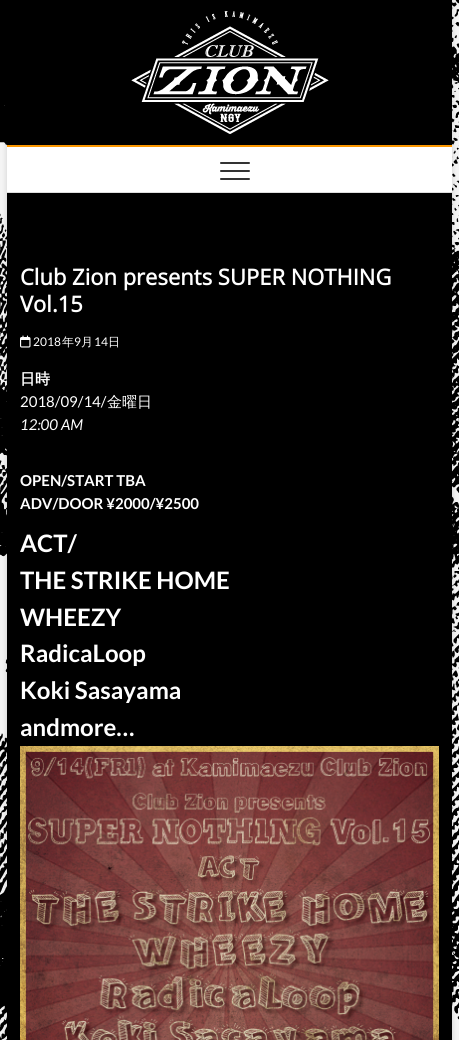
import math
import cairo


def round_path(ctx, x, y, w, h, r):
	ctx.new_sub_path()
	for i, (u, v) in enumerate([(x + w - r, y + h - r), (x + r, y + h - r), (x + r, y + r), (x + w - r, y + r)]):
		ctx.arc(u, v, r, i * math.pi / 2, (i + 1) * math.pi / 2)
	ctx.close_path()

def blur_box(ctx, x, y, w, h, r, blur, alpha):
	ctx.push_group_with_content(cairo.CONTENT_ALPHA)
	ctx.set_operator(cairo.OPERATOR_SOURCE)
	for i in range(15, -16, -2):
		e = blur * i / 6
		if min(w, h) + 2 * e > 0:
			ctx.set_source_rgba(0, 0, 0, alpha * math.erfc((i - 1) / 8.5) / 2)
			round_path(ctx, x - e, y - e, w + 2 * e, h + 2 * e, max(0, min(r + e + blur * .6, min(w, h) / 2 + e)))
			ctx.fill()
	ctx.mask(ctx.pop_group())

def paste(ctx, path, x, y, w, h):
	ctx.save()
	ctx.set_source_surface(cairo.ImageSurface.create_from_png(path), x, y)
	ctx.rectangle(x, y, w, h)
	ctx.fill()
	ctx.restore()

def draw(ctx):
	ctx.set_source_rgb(0.957, 0.957, 0.957)
	ctx.paint()
	paste(ctx, 'media/1.png', 0, 0, 459, 1040)
	ctx.set_source_rgb(0, 0, 0)
	blur_box(ctx, 7, 1, 445, 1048, 0, 3, 0.15)
	ctx.set_source_rgb(0, 0, 0)
	ctx.rectangle(7, 0, 445, 1040)
	ctx.fill()
	paste(ctx, 'media/2.png', 131, 11, 198, 123)
	ctx.set_source_rgb(1, 1, 1)
	ctx.rectangle(7, 147, 445, 45)
	ctx.fill()
	ctx.set_source_rgb(0.988, 0.592, 0)
	ctx.rectangle(7, 145, 445, 2)
	ctx.fill()
	ctx.set_source_rgb(0.867, 0.867, 0.867)
	ctx.rectangle(7, 192, 445, 1)
	ctx.fill()
	ctx.set_source_rgb(0.2, 0.2, 0.2)
	round_path(ctx, 220, 170, 30, 2, 1)
	ctx.fill()
	round_path(ctx, 220, 162, 30, 2, 1)
	ctx.fill()
	round_path(ctx, 220, 178, 30, 2, 1)
	ctx.fill()
	ctx.select_font_face('Open Sans', cairo.FONT_SLANT_NORMAL, cairo.FONT_WEIGHT_BOLD)
	ctx.set_font_size(22)
	ctx.set_source_rgb(1, 1, 1)
	ctx.move_to(20, 285)
	ctx.show_text('Club Zion presents SUPER NOTHING')
	ctx.move_to(20, 312)
	ctx.show_text('Vol.15')
	paste(ctx, 'media/3.png', 20, 335, 11, 13)
	ctx.select_font_face('Lato')
	ctx.set_font_size(12)
	ctx.move_to(33, 346)
	ctx.show_text('2018')
	ctx.select_font_face('WenQuanYi Zen Hei Medium')
	ctx.move_to(62, 346)
	ctx.show_text('年')
	ctx.select_font_face('Lato')
	ctx.move_to(74, 346)
	ctx.show_text('9')
	ctx.select_font_face('WenQuanYi Zen Hei Medium')
	ctx.move_to(81, 346)
	ctx.show_text('月')
	ctx.select_font_face('Lato')
	ctx.move_to(94, 346)
	ctx.show_text('14')
	ctx.select_font_face('WenQuanYi Zen Hei Medium')
	ctx.move_to(108, 346)
	ctx.show_text('日')
	ctx.select_font_face('WenQuanYi Zen Hei', cairo.FONT_SLANT_NORMAL, cairo.FONT_WEIGHT_BOLD)
	ctx.set_font_size(15)
	ctx.move_to(20, 384)
	ctx.show_text('日時')
	ctx.select_font_face('Lato')
	ctx.move_to(20, 407)
	ctx.show_text('2018/09/14/')
	ctx.select_font_face('WenQuanYi Zen Hei Medium')
	ctx.move_to(107, 407)
	ctx.show_text('金曜日')
	ctx.select_font_face('Lato', cairo.FONT_SLANT_ITALIC)
	ctx.move_to(20, 430)
	ctx.show_text('12:00 AM')
	ctx.select_font_face('Lato', cairo.FONT_SLANT_NORMAL, cairo.FONT_WEIGHT_BOLD)
	ctx.move_to(20, 486)
	ctx.show_text('OPEN/START TBA')
	ctx.move_to(20, 509)
	ctx.show_text('ADV/DOOR ¥2000/¥2500')
	ctx.set_font_size(24)
	for x, y, s in [
		(20, 552, 'ACT/'),
		(20, 589, 'THE STRIKE HOME'),
		(20, 626, 'WHEEZY'),
		(20, 662, 'RadicaLoop'),
		(20, 699, 'Koki Sasayama'),
		(20, 736, 'andmore…'),
	]:
		ctx.move_to(x, y)
		ctx.show_text(s)
	paste(ctx, 'media/4.png', 20, 746, 419, 294)


surface = cairo.ImageSurface(cairo.FORMAT_RGB24, 459, 1040)
ctx = cairo.Context(surface)
options = cairo.FontOptions()
options.set_hint_metrics(cairo.HINT_METRICS_OFF)
options.set_hint_style(cairo.HINT_STYLE_NONE)
ctx.set_font_options(options)
ctx.set_miter_limit(4)
draw(ctx)
surface.write_to_png('image.png')
